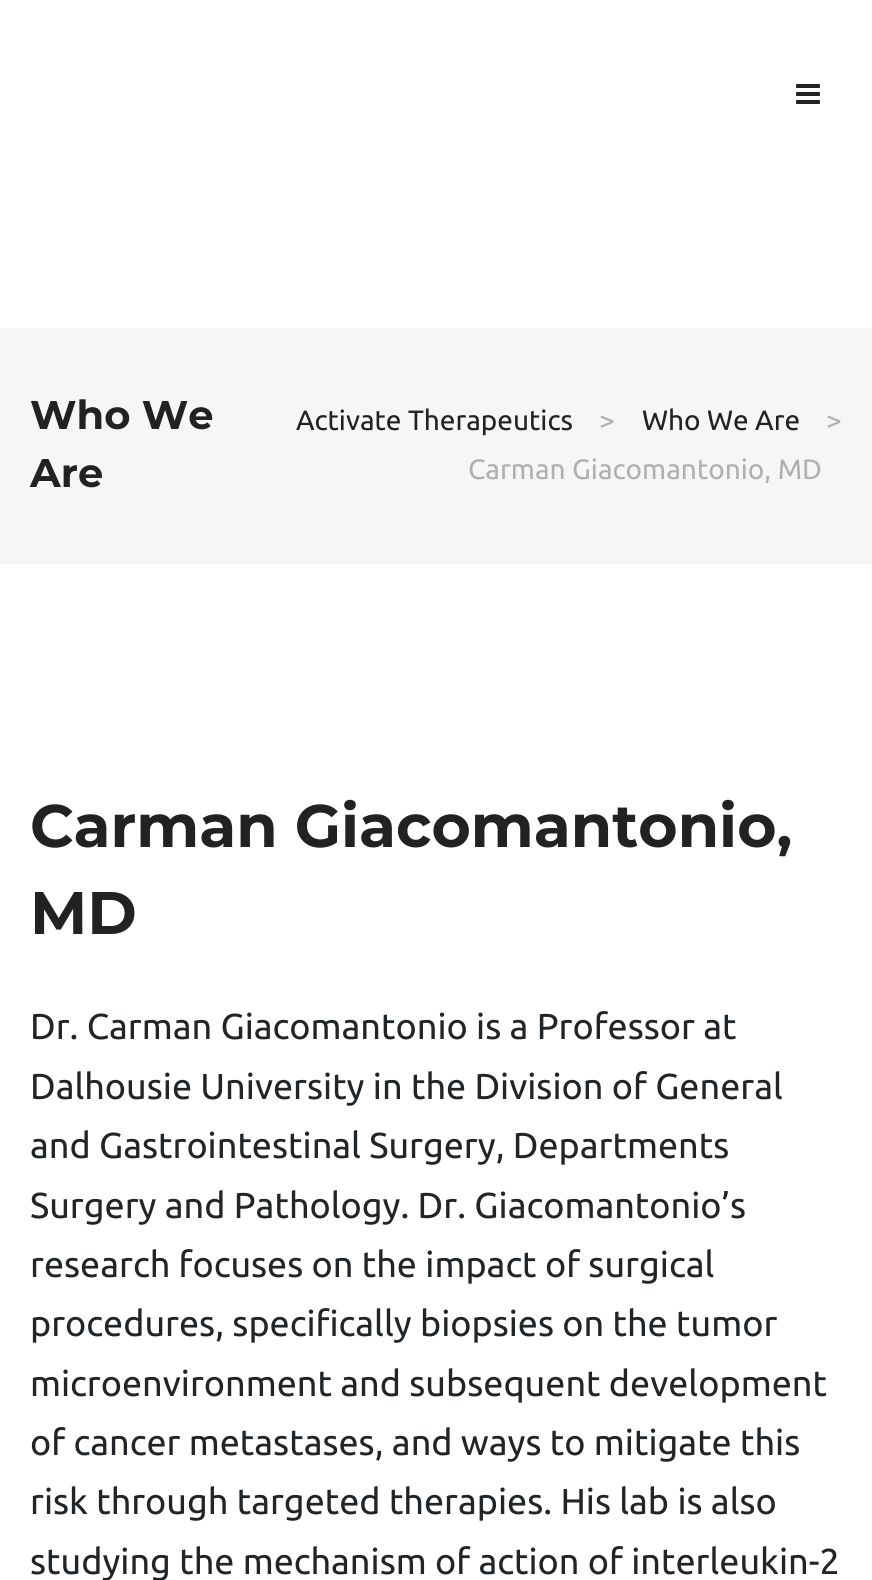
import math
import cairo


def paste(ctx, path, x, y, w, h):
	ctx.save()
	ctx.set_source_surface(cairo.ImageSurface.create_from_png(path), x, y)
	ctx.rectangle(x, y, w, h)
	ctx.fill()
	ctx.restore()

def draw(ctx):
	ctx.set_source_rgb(1, 1, 1)
	ctx.paint()
	paste(ctx, 'media/1.png', 796, 84, 24, 20)
	ctx.set_source_rgb(0.961, 0.961, 0.961)
	ctx.rectangle(0, 328, 872, 236)
	ctx.fill()
	ctx.select_font_face('Montserrat', cairo.FONT_SLANT_NORMAL, cairo.FONT_WEIGHT_BOLD)
	ctx.set_font_size(40)
	ctx.set_source_rgb(0.133, 0.133, 0.133)
	ctx.move_to(30, 429)
	ctx.show_text('Who We')
	ctx.move_to(30, 487)
	ctx.show_text('Are')
	ctx.select_font_face('Ubuntu')
	ctx.set_font_size(28)
	ctx.move_to(296, 430)
	ctx.show_text('Activate Therapeutics')
	ctx.set_source_rgb(0.69, 0.69, 0.69)
	ctx.move_to(599, 430)
	ctx.show_text('>')
	ctx.set_source_rgb(0.133, 0.133, 0.133)
	ctx.move_to(642, 430)
	ctx.show_text('Who We Are')
	ctx.set_source_rgb(0.69, 0.69, 0.69)
	ctx.move_to(826, 430)
	ctx.show_text('>')
	ctx.move_to(468, 479)
	ctx.show_text('Carman Giacomantonio, MD')
	ctx.select_font_face('Montserrat', cairo.FONT_SLANT_NORMAL, cairo.FONT_WEIGHT_BOLD)
	ctx.set_font_size(60)
	ctx.set_source_rgb(0.133, 0.133, 0.133)
	ctx.move_to(30, 847)
	ctx.show_text('Carman Giacomantonio,')
	ctx.move_to(30, 934)
	ctx.show_text('MD')
	ctx.select_font_face('Ubuntu')
	ctx.set_font_size(36)
	ctx.set_source_rgb(0.129, 0.145, 0.157)
	for x, y, s in [
		(30, 1039, 'Dr. Carman Giacomantonio is a Professor at'),
		(30, 1099, 'Dalhousie University in the Division of General'),
		(30, 1158, 'and Gastrointestinal Surgery, Departments'),
		(30, 1218, 'Surgery and Pathology. Dr. Giacomantonio’s'),
		(30, 1277, 'research focuses on the impact of surgical'),
		(30, 1336, 'procedures, specifically biopsies on the tumor'),
		(30, 1396, 'microenvironment and subsequent development'),
		(30, 1455, 'of cancer metastases, and ways to mitigate this'),
		(30, 1514, 'risk through targeted therapies. His lab is also'),
		(30, 1574, 'studying the mechanism of action of interleukin-2'),
	]:
		ctx.move_to(x, y)
		ctx.show_text(s)


surface = cairo.ImageSurface(cairo.FORMAT_RGB24, 872, 1580)
ctx = cairo.Context(surface)
options = cairo.FontOptions()
options.set_hint_metrics(cairo.HINT_METRICS_OFF)
options.set_hint_style(cairo.HINT_STYLE_NONE)
ctx.set_font_options(options)
ctx.set_miter_limit(4)
draw(ctx)
surface.write_to_png('image.png')
